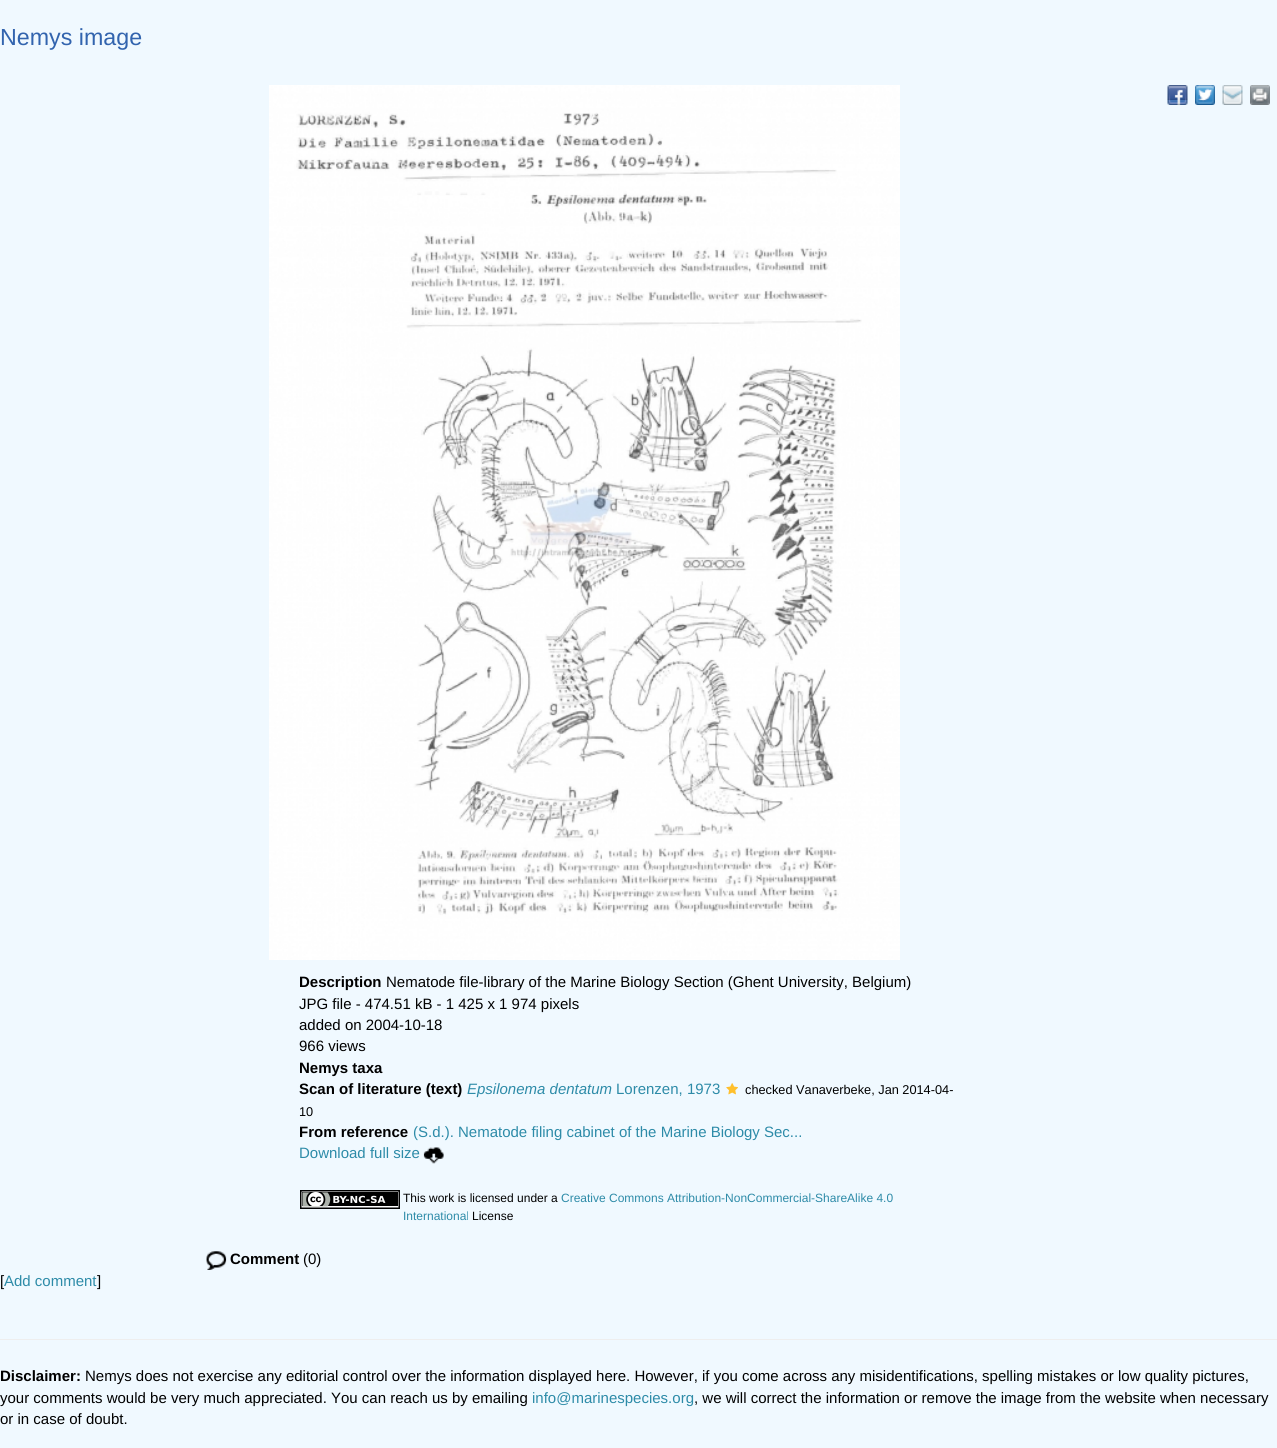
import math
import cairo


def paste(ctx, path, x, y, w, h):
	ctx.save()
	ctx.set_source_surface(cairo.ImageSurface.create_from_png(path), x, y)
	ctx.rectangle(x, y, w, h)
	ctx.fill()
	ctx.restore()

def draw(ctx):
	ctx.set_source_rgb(0.941, 0.973, 1)
	ctx.paint()
	ctx.select_font_face('Liberation Sans')
	ctx.set_font_size(23.25)
	ctx.set_source_rgb(0.196, 0.392, 0.682)
	ctx.move_to(0, 45)
	ctx.show_text('Nemys image')
	paste(ctx, 'media/1.png', 1167, 85, 21, 20)
	paste(ctx, 'media/2.png', 1195, 85, 20, 20)
	paste(ctx, 'media/3.png', 1222, 85, 21, 20)
	paste(ctx, 'media/4.png', 1250, 85, 20, 20)
	paste(ctx, 'media/5.png', 269, 85, 631, 875)
	ctx.select_font_face('Liberation Sans', cairo.FONT_SLANT_NORMAL, cairo.FONT_WEIGHT_BOLD)
	ctx.set_font_size(15)
	ctx.set_source_rgb(0, 0, 0)
	ctx.move_to(299, 987)
	ctx.show_text('Description')
	ctx.select_font_face('Liberation Sans')
	for x, y, s in [
		(386, 987, 'Nematode file-library of the Marine Biology Section (Ghent University, Belgium)'),
		(299, 1009, 'JPG file - 474.51 kB - 1 425 x 1 974 pixels'),
		(299, 1030, 'added on 2004-10-18'),
		(299, 1051, '966 views'),
	]:
		ctx.move_to(x, y)
		ctx.show_text(s)
	ctx.select_font_face('Liberation Sans', cairo.FONT_SLANT_NORMAL, cairo.FONT_WEIGHT_BOLD)
	ctx.move_to(299, 1073)
	ctx.show_text('Nemys taxa')
	ctx.move_to(299, 1094)
	ctx.show_text('Scan of literature (text)')
	ctx.select_font_face('Liberation Sans', cairo.FONT_SLANT_ITALIC)
	ctx.set_source_rgb(0.176, 0.545, 0.659)
	ctx.move_to(467, 1094)
	ctx.show_text('Epsilonema dentatum')
	ctx.select_font_face('Liberation Sans')
	ctx.move_to(616, 1094)
	ctx.show_text('Lorenzen, 1973')
	paste(ctx, 'media/6.png', 726, 1083, 12, 12)
	ctx.set_font_size(12.75)
	ctx.set_source_rgb(0, 0, 0)
	ctx.move_to(745, 1094)
	ctx.show_text('checked Vanaverbeke, Jan 2014-04-')
	ctx.move_to(299, 1116)
	ctx.show_text('10')
	ctx.select_font_face('Liberation Sans', cairo.FONT_SLANT_NORMAL, cairo.FONT_WEIGHT_BOLD)
	ctx.set_font_size(15)
	ctx.move_to(299, 1137)
	ctx.show_text('From reference')
	ctx.select_font_face('Liberation Sans')
	ctx.set_source_rgb(0.176, 0.545, 0.659)
	ctx.move_to(413, 1137)
	ctx.show_text('(S.d.). Nematode filing cabinet of the Marine Biology Sec...')
	ctx.move_to(299, 1158)
	ctx.show_text('Download full size')
	paste(ctx, 'media/7.png', 423, 1147, 21, 17)
	paste(ctx, 'media/8.png', 300, 1190, 100, 19)
	ctx.set_font_size(12)
	ctx.set_source_rgb(0, 0, 0)
	ctx.move_to(403, 1202)
	ctx.show_text('This work is licensed under a')
	ctx.set_source_rgb(0.176, 0.545, 0.659)
	ctx.move_to(561, 1202)
	ctx.show_text('Creative Commons Attribution-NonCommercial-ShareAlike 4.0')
	ctx.move_to(403, 1220)
	ctx.show_text('International')
	ctx.set_source_rgb(0, 0, 0)
	ctx.move_to(472, 1220)
	ctx.show_text('License')
	paste(ctx, 'media/9.png', 206, 1251, 21, 19)
	ctx.select_font_face('Liberation Sans', cairo.FONT_SLANT_NORMAL, cairo.FONT_WEIGHT_BOLD)
	ctx.set_font_size(15)
	ctx.move_to(230, 1264)
	ctx.show_text('Comment')
	ctx.select_font_face('Liberation Sans')
	ctx.move_to(303, 1264)
	ctx.show_text('(0)')
	ctx.move_to(0, 1286)
	ctx.show_text('[')
	ctx.set_source_rgb(0.176, 0.545, 0.659)
	ctx.move_to(4, 1286)
	ctx.show_text('Add comment')
	ctx.set_source_rgb(0, 0, 0)
	ctx.move_to(97, 1286)
	ctx.show_text(']')
	ctx.set_source_rgb(0.933, 0.933, 0.933)
	ctx.rectangle(0, 1339, 1277, 1)
	ctx.fill()
	ctx.select_font_face('Liberation Sans', cairo.FONT_SLANT_NORMAL, cairo.FONT_WEIGHT_BOLD)
	ctx.set_source_rgb(0, 0, 0)
	ctx.move_to(0, 1381)
	ctx.show_text('Disclaimer:')
	ctx.select_font_face('Liberation Sans')
	ctx.move_to(85, 1381)
	ctx.show_text('Nemys does not exercise any editorial control over the information displayed here. However, if you come across any misidentifications, spelling mistakes or low quality pictures,')
	ctx.move_to(0, 1403)
	ctx.show_text('your comments would be very much appreciated. You can reach us by emailing')
	ctx.set_source_rgb(0.176, 0.545, 0.659)
	ctx.move_to(532, 1403)
	ctx.show_text('info@marinespecies.org')
	ctx.set_source_rgb(0, 0, 0)
	ctx.move_to(694, 1403)
	ctx.show_text(', we will correct the information or remove the image from the website when necessary')
	ctx.move_to(0, 1424)
	ctx.show_text('or in case of doubt.')


surface = cairo.ImageSurface(cairo.FORMAT_RGB24, 1277, 1448)
ctx = cairo.Context(surface)
options = cairo.FontOptions()
options.set_hint_metrics(cairo.HINT_METRICS_OFF)
options.set_hint_style(cairo.HINT_STYLE_NONE)
ctx.set_font_options(options)
ctx.set_miter_limit(4)
draw(ctx)
surface.write_to_png('image.png')
